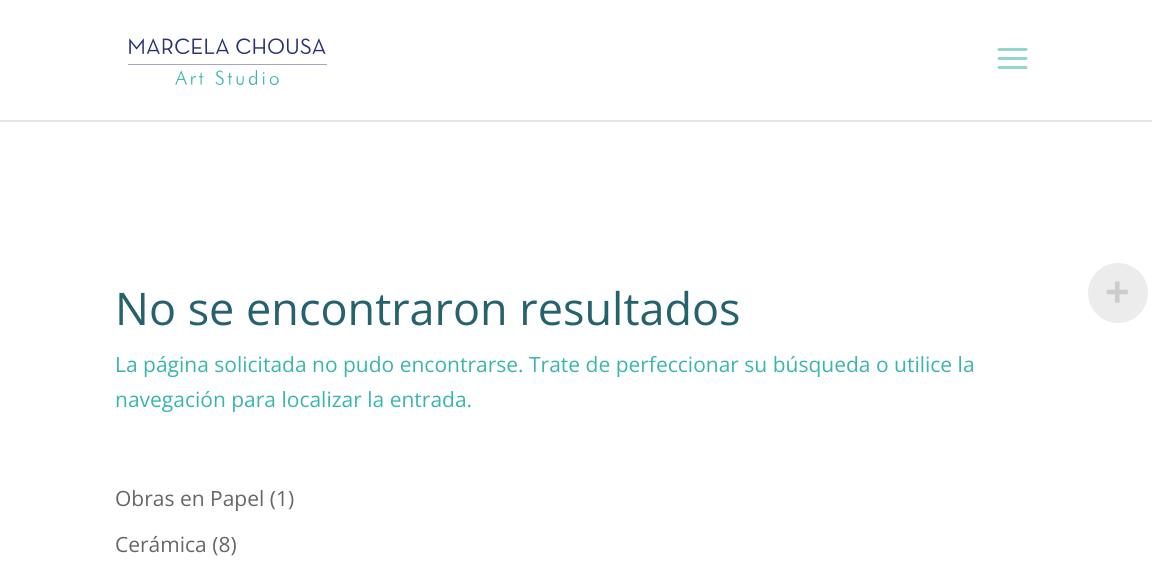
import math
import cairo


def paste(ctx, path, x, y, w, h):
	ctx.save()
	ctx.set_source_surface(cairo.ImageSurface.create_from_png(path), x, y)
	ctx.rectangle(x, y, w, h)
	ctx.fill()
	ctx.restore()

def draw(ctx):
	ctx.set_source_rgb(1, 1, 1)
	ctx.paint()
	ctx.set_source_rgb(0.902, 0.902, 0.902)
	ctx.rectangle(0, 120, 1152, 2)
	ctx.fill()
	paste(ctx, 'media/1.png', 128, 38, 199, 47)
	paste(ctx, 'media/2.png', 997, 48, 31, 21)
	ctx.select_font_face('Open Sans')
	ctx.set_font_size(45)
	ctx.set_source_rgb(0.145, 0.384, 0.431)
	ctx.move_to(115, 325)
	ctx.show_text('No se encontraron resultados')
	ctx.set_font_size(21)
	ctx.set_source_rgb(0.227, 0.71, 0.678)
	ctx.move_to(115, 372)
	ctx.show_text('La página solicitada no pudo encontrarse. Trate de perfeccionar su búsqueda o utilice la')
	ctx.move_to(115, 407)
	ctx.show_text('navegación para localizar la entrada.')
	ctx.set_source_rgb(0.4, 0.4, 0.4)
	ctx.move_to(115, 506)
	ctx.show_text('Obras en Papel (1)')
	ctx.move_to(115, 552)
	ctx.show_text('Cerámica (8)')
	ctx.set_source_rgb(0.922, 0.922, 0.922)
	ctx.new_path()
	ctx.arc(1118, 293, 30, 0, 2 * math.pi)
	ctx.fill()
	ctx.select_font_face('Liberation Sans', cairo.FONT_SLANT_NORMAL, cairo.FONT_WEIGHT_BOLD)
	ctx.set_font_size(42)
	ctx.set_source_rgb(0.8, 0.8, 0.8)
	ctx.move_to(1105, 306)
	ctx.show_text('+')


surface = cairo.ImageSurface(cairo.FORMAT_RGB24, 1152, 569)
ctx = cairo.Context(surface)
options = cairo.FontOptions()
options.set_hint_metrics(cairo.HINT_METRICS_OFF)
options.set_hint_style(cairo.HINT_STYLE_NONE)
ctx.set_font_options(options)
ctx.set_miter_limit(4)
draw(ctx)
surface.write_to_png('image.png')
